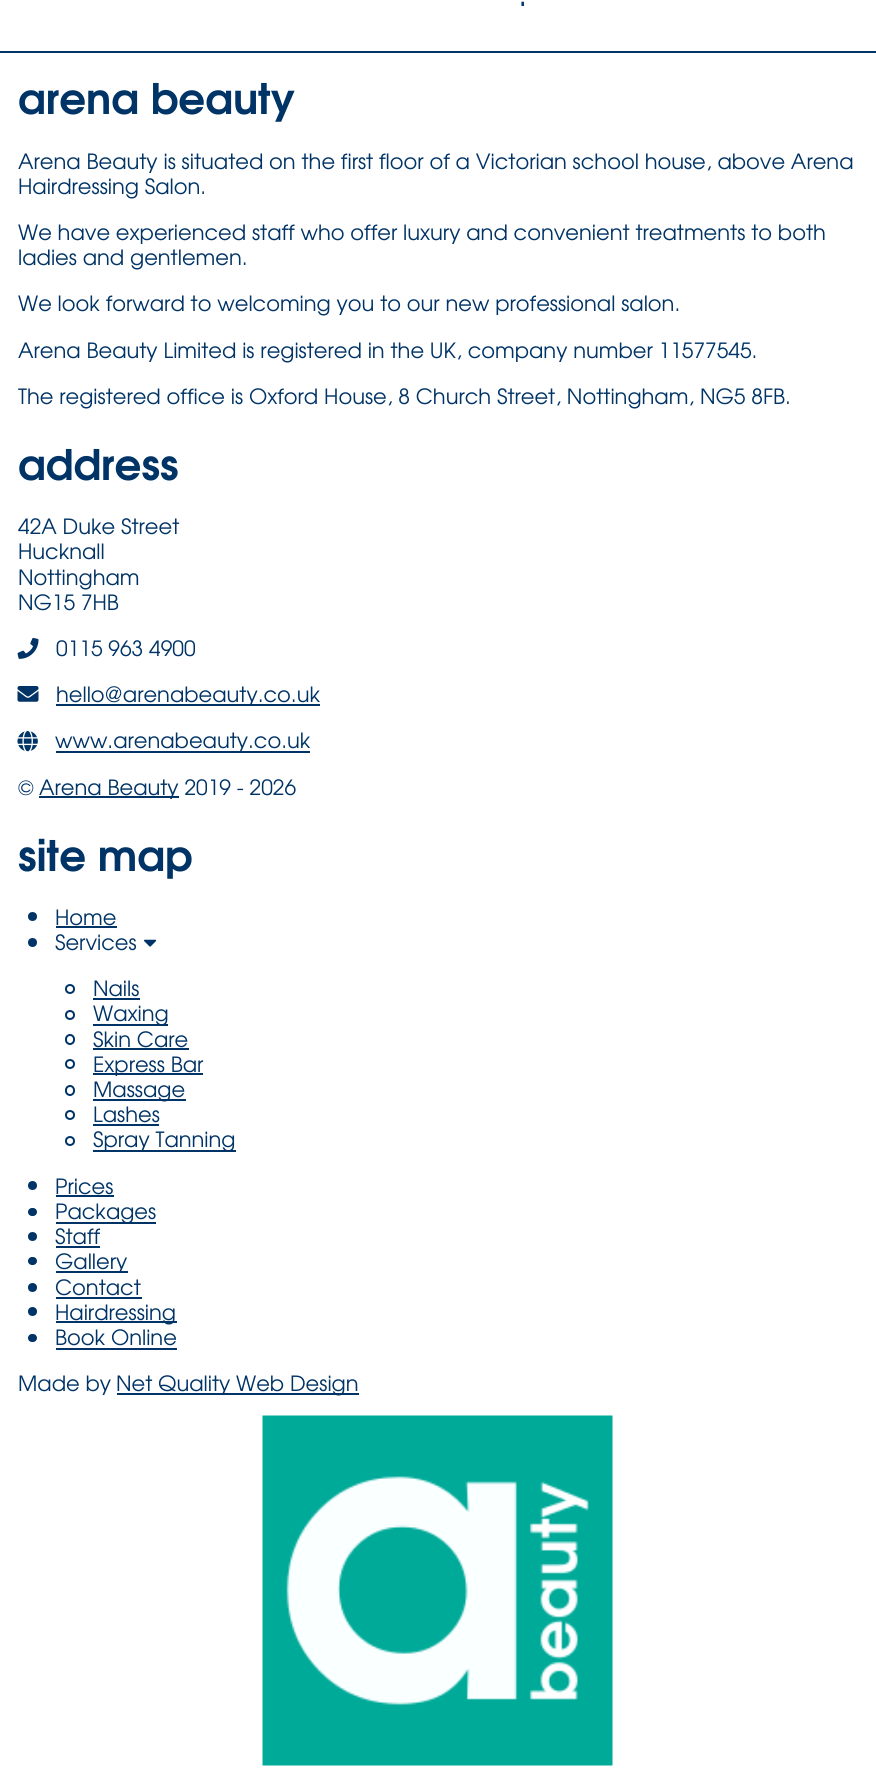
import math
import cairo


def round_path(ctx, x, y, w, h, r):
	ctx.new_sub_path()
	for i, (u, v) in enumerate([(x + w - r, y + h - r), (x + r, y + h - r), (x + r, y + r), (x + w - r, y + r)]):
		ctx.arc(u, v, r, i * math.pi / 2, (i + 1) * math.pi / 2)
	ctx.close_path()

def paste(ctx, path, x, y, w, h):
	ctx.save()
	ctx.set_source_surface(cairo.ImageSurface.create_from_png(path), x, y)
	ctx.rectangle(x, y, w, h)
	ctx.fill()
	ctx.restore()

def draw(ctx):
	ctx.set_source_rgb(1, 1, 1)
	ctx.paint()
	ctx.select_font_face('TeX Gyre Adventor')
	ctx.set_font_size(34)
	ctx.set_source_rgb(0, 0.2, 0.4)
	ctx.move_to(518, 6)
	ctx.show_text('.')
	ctx.rectangle(0, 51, 876, 2)
	ctx.fill()
	ctx.select_font_face('TeX Gyre Adventor', cairo.FONT_SLANT_NORMAL, cairo.FONT_WEIGHT_BOLD)
	ctx.set_font_size(42)
	ctx.move_to(18, 114)
	ctx.show_text('arena beauty')
	ctx.select_font_face('TeX Gyre Adventor')
	ctx.set_font_size(21)
	for x, y, s in [
		(18, 169, 'Arena Beauty is situated on the first floor of a Victorian school house, above Arena'),
		(18, 194, 'Hairdressing Salon.'),
		(18, 240, 'We have experienced staff who offer luxury and convenient treatments to both'),
		(18, 265, 'ladies and gentlemen.'),
		(18, 311, 'We look forward to welcoming you to our new professional salon.'),
		(18, 358, 'Arena Beauty Limited is registered in the UK, company number 11577545.'),
		(18, 404, 'The registered office is Oxford House, 8 Church Street, Nottingham, NG5 8FB.'),
	]:
		ctx.move_to(x, y)
		ctx.show_text(s)
	ctx.select_font_face('TeX Gyre Adventor', cairo.FONT_SLANT_NORMAL, cairo.FONT_WEIGHT_BOLD)
	ctx.set_font_size(42)
	ctx.move_to(18, 480)
	ctx.show_text('address')
	ctx.select_font_face('TeX Gyre Adventor')
	ctx.set_font_size(21)
	for x, y, s in [
		(18, 534, '42A Duke Street'),
		(18, 559, 'Hucknall'),
		(18, 585, 'Nottingham'),
		(18, 610, 'NG15 7HB'),
	]:
		ctx.move_to(x, y)
		ctx.show_text(s)
	paste(ctx, 'media/1.png', 17, 637, 22, 22)
	ctx.move_to(56, 656)
	ctx.show_text('0115 963 4900')
	paste(ctx, 'media/2.png', 17, 686, 22, 16)
	ctx.rectangle(56, 704, 264, 2)
	ctx.fill()
	ctx.move_to(56, 702)
	ctx.show_text('hello@arenabeauty.co.uk')
	paste(ctx, 'media/3.png', 17, 731, 21, 21)
	ctx.rectangle(56, 751, 254, 2)
	ctx.fill()
	ctx.move_to(55, 748)
	ctx.show_text('www.arenabeauty.co.uk')
	ctx.move_to(18, 795)
	ctx.show_text('©')
	ctx.rectangle(39, 796, 140, 2)
	ctx.fill()
	ctx.move_to(39, 795)
	ctx.show_text('Arena Beauty 2019 - 2026')
	ctx.select_font_face('TeX Gyre Adventor', cairo.FONT_SLANT_NORMAL, cairo.FONT_WEIGHT_BOLD)
	ctx.set_font_size(42)
	ctx.move_to(18, 871)
	ctx.show_text('site map')
	ctx.new_path()
	ctx.arc(32.5, 916.5, 4.5, 0, 2 * math.pi)
	ctx.fill()
	ctx.select_font_face('TeX Gyre Adventor')
	ctx.set_font_size(21)
	ctx.move_to(55, 925)
	ctx.show_text('Home')
	ctx.rectangle(56, 926, 61, 2)
	ctx.fill()
	ctx.arc(32.5, 942.5, 4.5, 0, 2 * math.pi)
	ctx.fill()
	ctx.move_to(55, 950)
	ctx.show_text('Services')
	paste(ctx, 'media/4.png', 144, 939, 13, 8)
	ctx.arc(70, 989, 4, 0, 2 * math.pi)
	ctx.stroke()
	ctx.move_to(93, 996)
	ctx.show_text('Nails')
	ctx.rectangle(93, 998, 47, 2)
	ctx.fill()
	ctx.arc(70, 1015, 4, 0, 2 * math.pi)
	ctx.stroke()
	ctx.rectangle(93, 1024, 75, 2)
	ctx.fill()
	ctx.move_to(93, 1021)
	ctx.show_text('Waxing')
	round_path(ctx, 66, 1035, 8, 9, 4)
	ctx.stroke()
	ctx.move_to(93, 1047)
	ctx.show_text('Skin Care')
	ctx.rectangle(93, 1048, 96, 2)
	ctx.fill()
	ctx.arc(70, 1064, 4, 0, 2 * math.pi)
	ctx.stroke()
	ctx.rectangle(93, 1073, 110, 2)
	ctx.fill()
	ctx.move_to(93, 1072)
	ctx.show_text('Express Bar')
	round_path(ctx, 66, 1086, 8, 9, 4)
	ctx.stroke()
	ctx.rectangle(93, 1099, 93, 2)
	ctx.fill()
	ctx.move_to(93, 1097)
	ctx.show_text('Massage')
	ctx.new_path()
	ctx.arc(70, 1115, 4, 0, 2 * math.pi)
	ctx.stroke()
	ctx.move_to(93, 1122)
	ctx.show_text('Lashes')
	ctx.rectangle(93, 1124, 66, 2)
	ctx.fill()
	ctx.arc(70, 1141, 4, 0, 2 * math.pi)
	ctx.stroke()
	ctx.rectangle(93, 1150, 143, 2)
	ctx.fill()
	ctx.move_to(93, 1147)
	ctx.show_text('Spray Tanning')
	ctx.new_path()
	ctx.arc(32.5, 1185.5, 4.5, 0, 2 * math.pi)
	ctx.fill()
	ctx.move_to(55, 1194)
	ctx.show_text('Prices')
	ctx.rectangle(56, 1195, 58, 2)
	ctx.fill()
	round_path(ctx, 28, 1208, 9, 8, 4)
	ctx.fill()
	ctx.rectangle(56, 1222, 100, 2)
	ctx.fill()
	ctx.move_to(55, 1219)
	ctx.show_text('Packages')
	ctx.new_path()
	ctx.arc(32.5, 1236.5, 4.5, 0, 2 * math.pi)
	ctx.fill()
	ctx.move_to(55, 1244)
	ctx.show_text('Staff')
	ctx.rectangle(56, 1246, 44, 2)
	ctx.fill()
	round_path(ctx, 28, 1257, 9, 8, 4)
	ctx.fill()
	ctx.rectangle(56, 1271, 72, 2)
	ctx.fill()
	ctx.move_to(55, 1269)
	ctx.show_text('Gallery')
	ctx.new_path()
	ctx.arc(32.5, 1287.5, 4.5, 0, 2 * math.pi)
	ctx.fill()
	ctx.move_to(55, 1295)
	ctx.show_text('Contact')
	ctx.rectangle(56, 1297, 86, 2)
	ctx.fill()
	ctx.arc(32.5, 1311.5, 4.5, 0, 2 * math.pi)
	ctx.fill()
	ctx.rectangle(56, 1321, 121, 2)
	ctx.fill()
	ctx.move_to(55, 1320)
	ctx.show_text('Hairdressing')
	round_path(ctx, 28, 1334, 9, 8, 4)
	ctx.fill()
	ctx.move_to(55, 1345)
	ctx.show_text('Book Online')
	ctx.rectangle(56, 1348, 121, 2)
	ctx.fill()
	ctx.move_to(18, 1391)
	ctx.show_text('Made by')
	ctx.rectangle(117, 1393, 242, 2)
	ctx.fill()
	ctx.move_to(116, 1391)
	ctx.show_text('Net Quality Web Design')
	paste(ctx, 'media/5.png', 262, 1415, 351, 351)


surface = cairo.ImageSurface(cairo.FORMAT_RGB24, 876, 1792)
ctx = cairo.Context(surface)
options = cairo.FontOptions()
options.set_hint_metrics(cairo.HINT_METRICS_OFF)
options.set_hint_style(cairo.HINT_STYLE_NONE)
ctx.set_font_options(options)
ctx.set_miter_limit(4)
draw(ctx)
surface.write_to_png('image.png')
